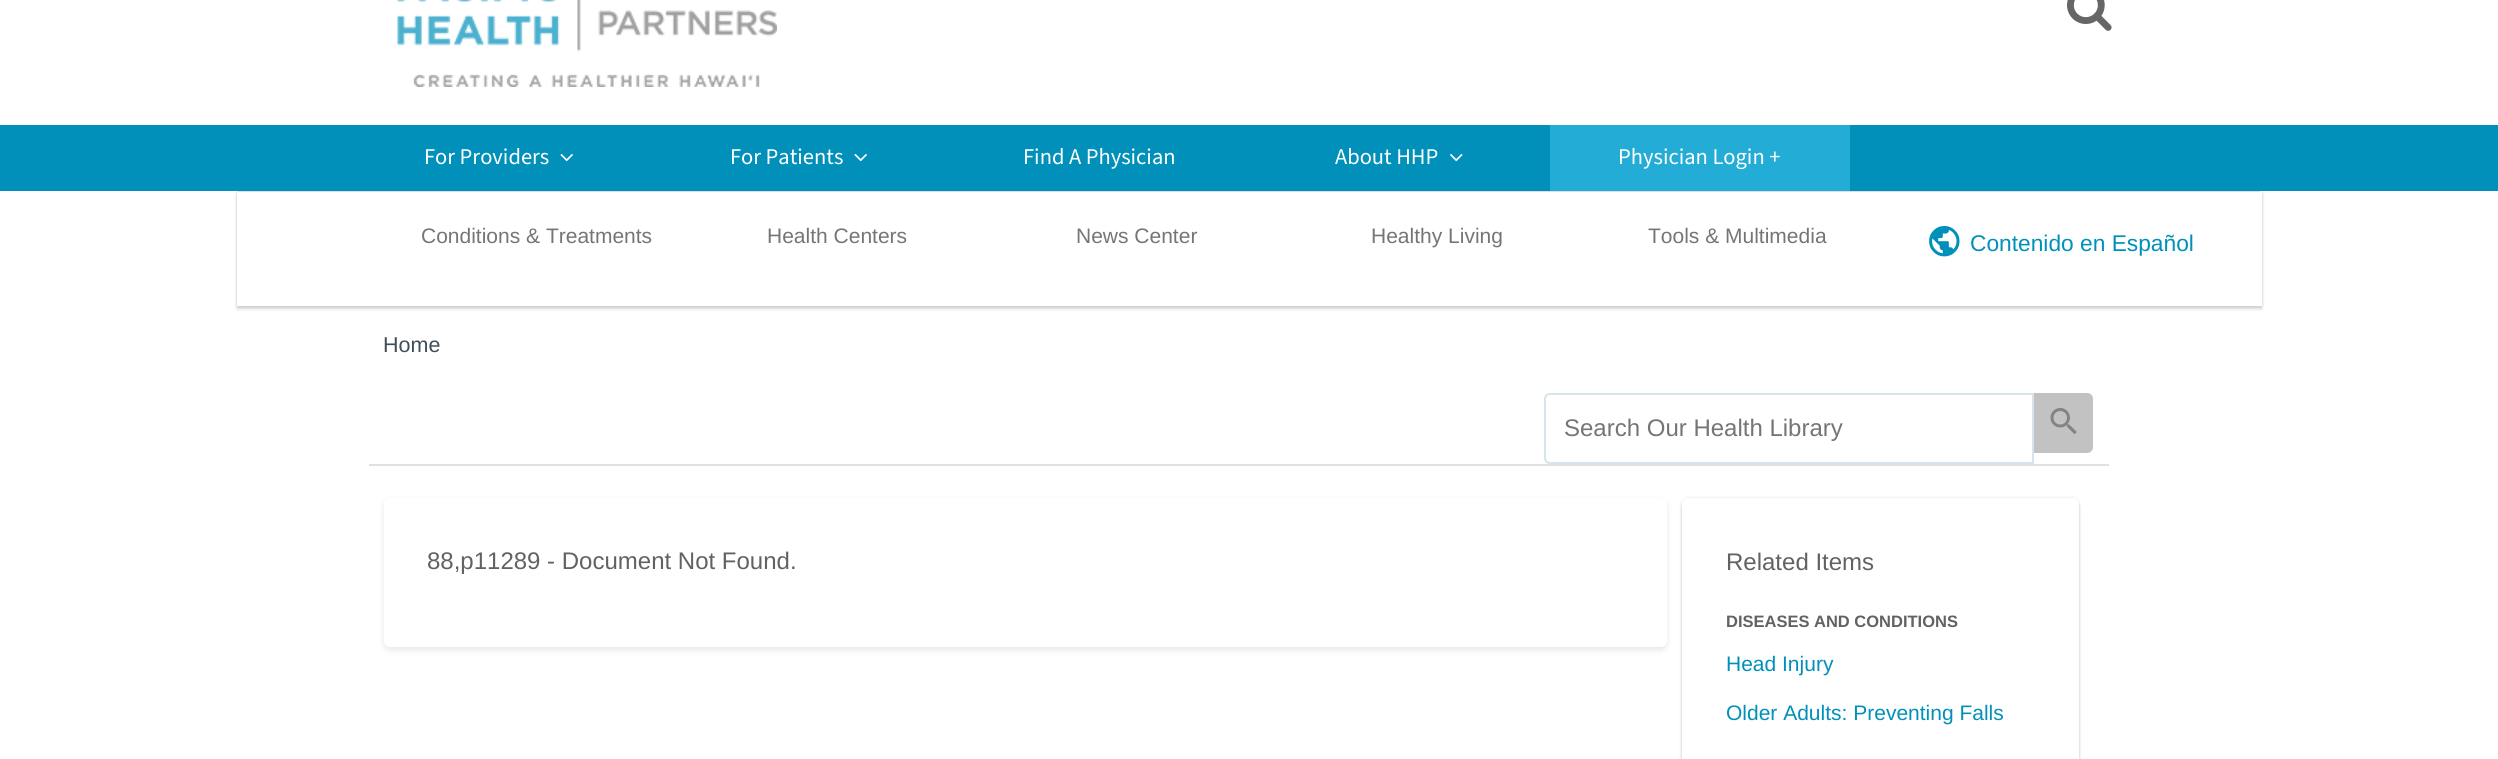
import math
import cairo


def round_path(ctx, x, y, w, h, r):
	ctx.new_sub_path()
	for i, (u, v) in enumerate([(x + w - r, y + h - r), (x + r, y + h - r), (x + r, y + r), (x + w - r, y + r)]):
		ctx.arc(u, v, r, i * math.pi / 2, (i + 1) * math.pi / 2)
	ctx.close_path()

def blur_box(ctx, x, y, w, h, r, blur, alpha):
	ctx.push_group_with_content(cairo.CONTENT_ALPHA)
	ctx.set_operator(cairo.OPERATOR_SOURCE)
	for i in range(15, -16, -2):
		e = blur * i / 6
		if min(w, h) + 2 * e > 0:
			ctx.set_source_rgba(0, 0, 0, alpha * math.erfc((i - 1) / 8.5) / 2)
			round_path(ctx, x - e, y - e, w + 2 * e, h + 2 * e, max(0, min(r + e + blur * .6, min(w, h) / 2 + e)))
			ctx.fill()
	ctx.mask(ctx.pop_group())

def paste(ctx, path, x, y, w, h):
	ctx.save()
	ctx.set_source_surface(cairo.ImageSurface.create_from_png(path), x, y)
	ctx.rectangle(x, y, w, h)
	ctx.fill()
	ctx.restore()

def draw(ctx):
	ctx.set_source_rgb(1, 1, 1)
	ctx.paint()
	paste(ctx, 'media/1.png', 397, 0, 380, 87)
	paste(ctx, 'media/2.png', 2067, 0, 45, 31)
	ctx.save()
	ctx.set_fill_rule(cairo.FILL_RULE_EVEN_ODD)
	ctx.new_path()
	ctx.move_to(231, 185)
	ctx.line_to(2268, 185)
	ctx.line_to(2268, 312)
	ctx.line_to(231, 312)
	ctx.close_path()
	ctx.move_to(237, 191)
	ctx.line_to(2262, 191)
	ctx.line_to(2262, 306)
	ctx.line_to(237, 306)
	ctx.close_path()
	ctx.clip()
	ctx.set_source_rgb(0, 0, 0)
	blur_box(ctx, 237, 191, 2025, 115, 0, 1.5, 0.12)
	ctx.restore()
	ctx.save()
	ctx.set_fill_rule(cairo.FILL_RULE_EVEN_ODD)
	ctx.new_path()
	ctx.move_to(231, 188)
	ctx.line_to(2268, 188)
	ctx.line_to(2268, 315)
	ctx.line_to(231, 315)
	ctx.close_path()
	ctx.move_to(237, 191)
	ctx.line_to(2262, 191)
	ctx.line_to(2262, 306)
	ctx.line_to(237, 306)
	ctx.close_path()
	ctx.clip()
	ctx.set_source_rgb(0, 0, 0)
	blur_box(ctx, 237, 194, 2025, 115, 0, 1.5, 0.16)
	ctx.restore()
	ctx.set_source_rgba(0.498, 0.561, 0.643, 0.3)
	ctx.new_path()
	ctx.move_to(237, 190)
	ctx.line_to(2262, 190)
	ctx.line_to(2260, 192)
	ctx.line_to(238, 192)
	ctx.close_path()
	ctx.fill()
	ctx.set_source_rgb(0, 0.565, 0.729)
	ctx.rectangle(0, 125, 2498, 66)
	ctx.fill()
	ctx.select_font_face('Source Sans 3')
	ctx.set_font_size(22.5)
	ctx.set_source_rgb(1, 1, 1)
	ctx.move_to(424, 164)
	ctx.show_text('For Providers')
	paste(ctx, 'media/3.png', 560, 154, 13, 8)
	ctx.move_to(730, 164)
	ctx.show_text('For Patients')
	paste(ctx, 'media/3.png', 854, 154, 13, 8)
	ctx.move_to(1023, 164)
	ctx.show_text('Find A Physician')
	ctx.move_to(1335, 164)
	ctx.show_text('About HHP')
	paste(ctx, 'media/4.png', 1450, 154, 13, 8)
	ctx.set_source_rgb(0.137, 0.675, 0.835)
	ctx.rectangle(1550, 125, 300, 66)
	ctx.fill()
	ctx.set_source_rgb(1, 1, 1)
	ctx.move_to(1618, 164)
	ctx.show_text('Physician Login +')
	ctx.select_font_face('Liberation Sans')
	ctx.set_font_size(21)
	ctx.set_source_rgb(0.459, 0.459, 0.459)
	for x, y, s in [
		(421, 243, 'Conditions & Treatments'),
		(767, 243, 'Health Centers'),
		(1076, 243, 'News Center'),
		(1371, 243, 'Healthy Living'),
		(1648, 243, 'Tools & Multimedia'),
	]:
		ctx.move_to(x, y)
		ctx.show_text(s)
	paste(ctx, 'media/5.png', 1929, 226, 31, 31)
	ctx.set_font_size(22.75)
	ctx.set_source_rgb(0, 0.565, 0.729)
	ctx.move_to(1970, 251)
	ctx.show_text('Contenido en Español')
	ctx.set_font_size(21.5)
	ctx.set_source_rgb(0.243, 0.31, 0.353)
	ctx.move_to(383, 352)
	ctx.show_text('Home')
	ctx.set_source_rgb(0.878, 0.878, 0.878)
	ctx.rectangle(369, 464, 1740, 2)
	ctx.fill()
	ctx.new_path()
	ctx.move_to(1550, 394)
	ctx.line_to(2033, 394)
	ctx.line_to(2033, 463)
	ctx.line_to(1550, 463)
	ctx.curve_to(1547, 463, 1545, 461, 1545, 458)
	ctx.line_to(1545, 399)
	ctx.curve_to(1545, 396, 1547, 394, 1550, 394)
	ctx.close_path()
	ctx.set_source_rgb(0.839, 0.894, 0.922)
	ctx.stroke()
	ctx.set_font_size(24)
	ctx.set_source_rgb(0.459, 0.459, 0.459)
	ctx.move_to(1564, 436)
	ctx.show_text('Search Our Health Library')
	ctx.set_source_rgb(0.761, 0.761, 0.761)
	ctx.new_path()
	ctx.move_to(2034, 393)
	ctx.line_to(2087, 393)
	ctx.curve_to(2090.5, 393, 2093, 395.5, 2093, 399)
	ctx.line_to(2093, 447)
	ctx.curve_to(2093, 450.5, 2090.5, 453, 2087, 453)
	ctx.line_to(2034, 453)
	ctx.close_path()
	ctx.fill()
	paste(ctx, 'media/6.png', 2050, 408, 27, 26)
	ctx.set_source_rgb(0.051, 0, 0.122)
	blur_box(ctx, 384, 501, 1283, 149, 6, 3, 0.1)
	ctx.set_source_rgb(1, 1, 1)
	round_path(ctx, 384, 498, 1283, 149, 6)
	ctx.fill()
	ctx.set_source_rgb(0.384, 0.384, 0.384)
	ctx.move_to(427, 569)
	ctx.show_text('88,p11289 - Document Not Found.')
	ctx.set_source_rgb(0, 0, 0)
	blur_box(ctx, 1682, 498, 397, 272, 6, 1.5, 0.12)
	blur_box(ctx, 1682, 501, 397, 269, 6, 1.5, 0.16)
	ctx.set_source_rgb(1, 1, 1)
	round_path(ctx, 1682, 498, 397, 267, 6)
	ctx.fill()
	ctx.set_source_rgb(0.384, 0.384, 0.384)
	ctx.move_to(1726, 570)
	ctx.show_text('Related Items')
	ctx.select_font_face('Liberation Sans', cairo.FONT_SLANT_NORMAL, cairo.FONT_WEIGHT_BOLD)
	ctx.set_font_size(16.5)
	ctx.move_to(1726, 627)
	ctx.show_text('DISEASES AND CONDITIONS')
	ctx.select_font_face('Liberation Sans')
	ctx.set_font_size(21)
	ctx.set_source_rgb(0, 0.565, 0.729)
	ctx.move_to(1726, 671)
	ctx.show_text('Head Injury')
	ctx.move_to(1726, 720)
	ctx.show_text('Older Adults: Preventing Falls')


surface = cairo.ImageSurface(cairo.FORMAT_RGB24, 2498, 759)
ctx = cairo.Context(surface)
options = cairo.FontOptions()
options.set_hint_metrics(cairo.HINT_METRICS_OFF)
options.set_hint_style(cairo.HINT_STYLE_NONE)
ctx.set_font_options(options)
ctx.set_miter_limit(4)
draw(ctx)
surface.write_to_png('image.png')
